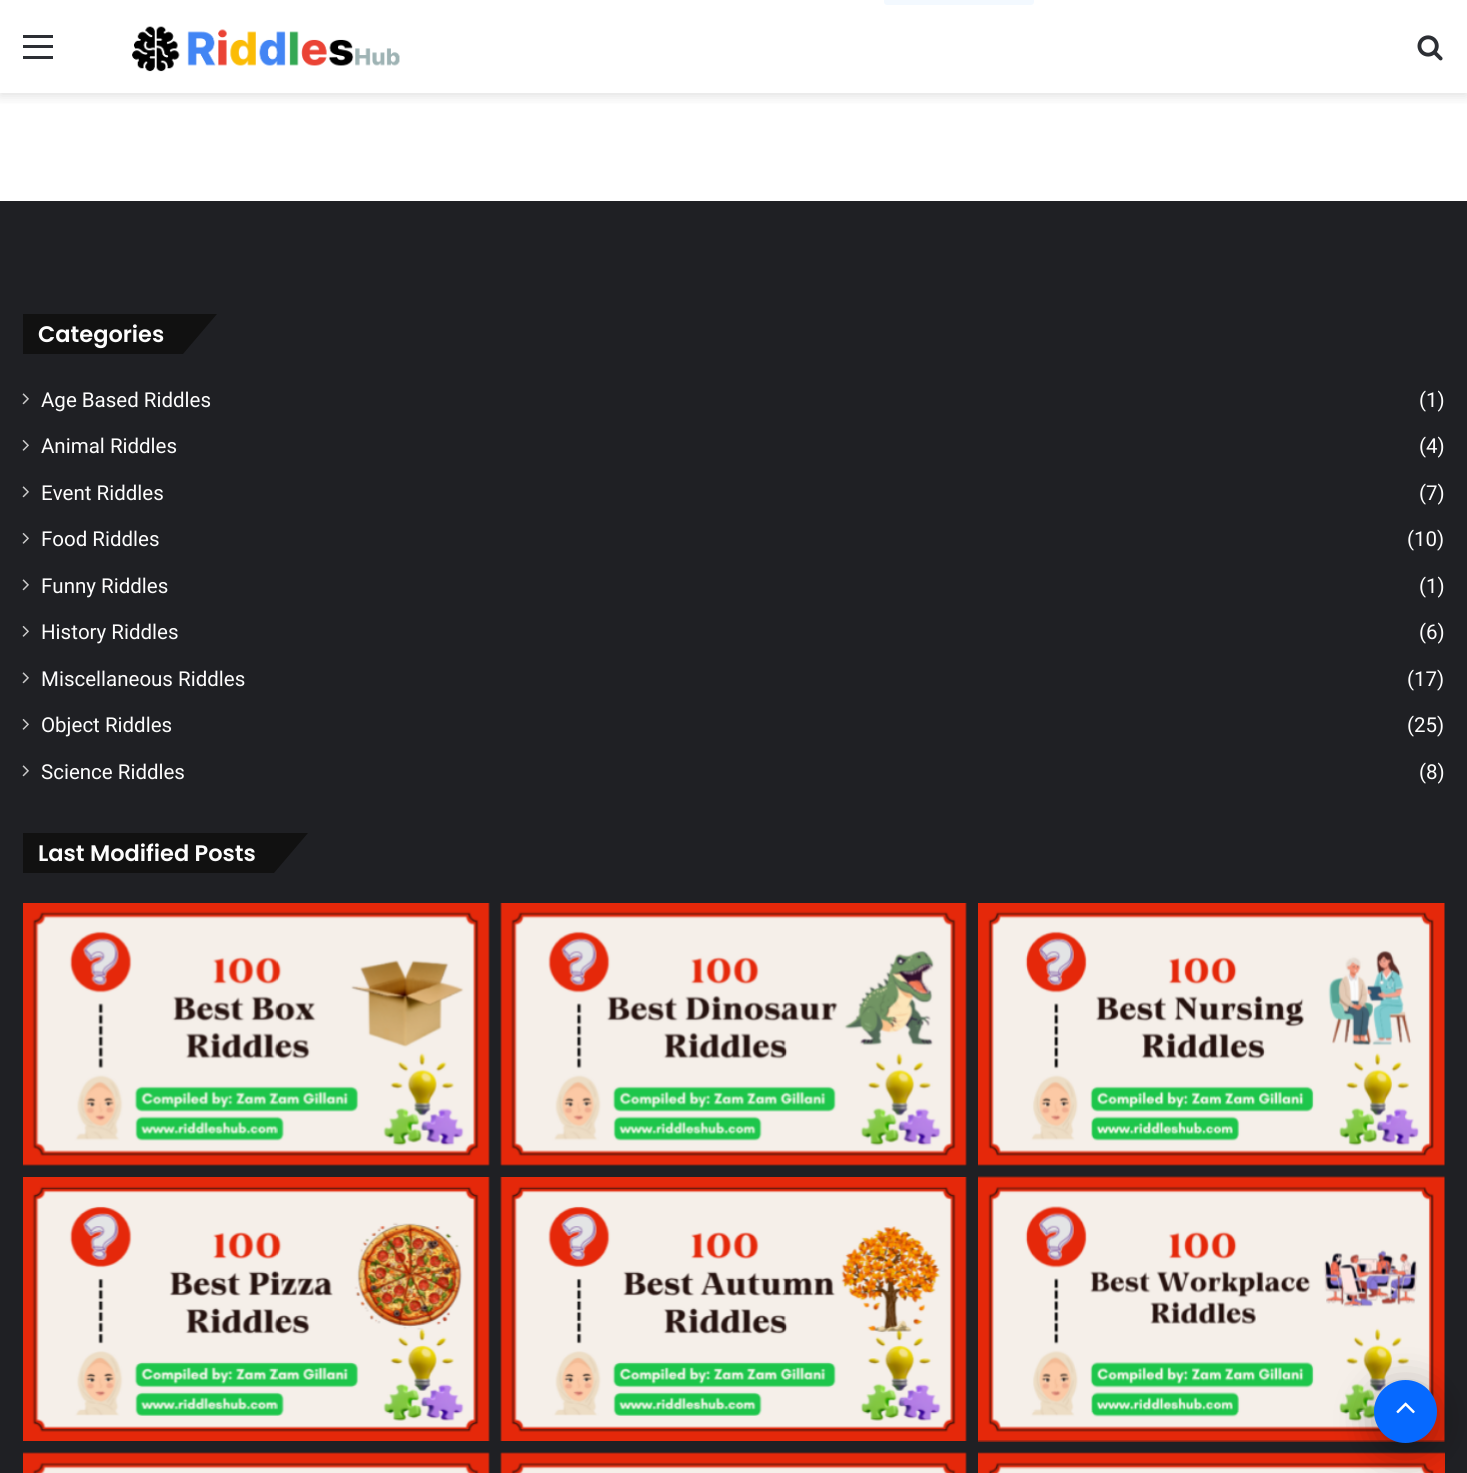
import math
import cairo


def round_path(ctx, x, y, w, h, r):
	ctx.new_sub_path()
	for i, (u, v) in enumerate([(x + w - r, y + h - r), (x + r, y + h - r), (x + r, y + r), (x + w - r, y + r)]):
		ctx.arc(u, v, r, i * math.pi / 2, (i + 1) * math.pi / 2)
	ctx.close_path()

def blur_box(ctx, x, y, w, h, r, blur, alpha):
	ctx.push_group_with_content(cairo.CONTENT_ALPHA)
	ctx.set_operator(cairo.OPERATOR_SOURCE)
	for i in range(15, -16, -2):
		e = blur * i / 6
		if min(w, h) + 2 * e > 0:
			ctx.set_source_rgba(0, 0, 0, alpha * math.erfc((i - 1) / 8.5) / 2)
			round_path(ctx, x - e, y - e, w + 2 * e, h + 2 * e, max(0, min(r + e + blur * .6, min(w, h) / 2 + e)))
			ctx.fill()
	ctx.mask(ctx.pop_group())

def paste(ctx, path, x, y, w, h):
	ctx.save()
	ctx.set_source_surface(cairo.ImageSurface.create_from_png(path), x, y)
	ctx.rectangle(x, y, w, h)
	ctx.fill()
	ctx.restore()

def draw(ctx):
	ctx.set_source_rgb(1, 1, 1)
	ctx.paint()
	ctx.set_source_rgb(0.953, 0.973, 1)
	round_path(ctx, 884, -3, 150, 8, 3)
	ctx.fill()
	ctx.save()
	ctx.rectangle(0, 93, 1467, 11)
	ctx.clip()
	ctx.set_source_rgb(0.388, 0.388, 0.388)
	blur_box(ctx, 0, 3, 1467, 93, 0, 6, 0.2)
	ctx.restore()
	ctx.set_source_rgb(0.173, 0.184, 0.204)
	ctx.rectangle(23, 45, 30, 3)
	ctx.rectangle(23, 35, 30, 3)
	ctx.rectangle(23, 56, 30, 3)
	ctx.fill()
	paste(ctx, 'media/1.png', 132, 26, 268, 46)
	paste(ctx, 'media/2.png', 1417, 35, 26, 26)
	ctx.set_source_rgb(0.122, 0.125, 0.141)
	ctx.rectangle(0, 201, 1467, 1272)
	ctx.fill()
	ctx.set_source_rgb(0.067, 0.067, 0.067)
	ctx.rectangle(23, 314, 84, 40)
	ctx.fill()
	ctx.new_path()
	ctx.move_to(107, 314)
	ctx.line_to(217, 314)
	ctx.line_to(183, 354)
	ctx.line_to(73, 354)
	ctx.close_path()
	ctx.fill()
	ctx.select_font_face('Poppins SemiBold')
	ctx.set_font_size(22.5)
	ctx.set_source_rgb(0.992, 0.992, 0.992)
	ctx.move_to(38, 342)
	ctx.show_text('Categories')
	paste(ctx, 'media/3.png', 22, 393, 7, 12)
	ctx.select_font_face('Roboto')
	ctx.set_font_size(20.5)
	ctx.move_to(41, 407)
	ctx.show_text('Age Based Riddles')
	ctx.move_to(1419, 407)
	ctx.show_text('(1)')
	paste(ctx, 'media/4.png', 22, 439, 7, 12)
	ctx.move_to(41, 453)
	ctx.show_text('Animal Riddles')
	ctx.move_to(1419, 453)
	ctx.show_text('(4)')
	paste(ctx, 'media/3.png', 22, 486, 7, 12)
	ctx.move_to(41, 500)
	ctx.show_text('Event Riddles')
	ctx.move_to(1419, 500)
	ctx.show_text('(7)')
	paste(ctx, 'media/4.png', 22, 532, 7, 12)
	ctx.move_to(41, 546)
	ctx.show_text('Food Riddles')
	ctx.move_to(1407, 546)
	ctx.show_text('(10)')
	paste(ctx, 'media/3.png', 22, 579, 7, 12)
	ctx.move_to(41, 593)
	ctx.show_text('Funny Riddles')
	ctx.move_to(1419, 593)
	ctx.show_text('(1)')
	paste(ctx, 'media/4.png', 22, 625, 7, 12)
	ctx.move_to(41, 639)
	ctx.show_text('History Riddles')
	ctx.move_to(1419, 639)
	ctx.show_text('(6)')
	paste(ctx, 'media/3.png', 22, 672, 7, 12)
	ctx.move_to(41, 686)
	ctx.show_text('Miscellaneous Riddles')
	ctx.move_to(1407, 686)
	ctx.show_text('(17)')
	paste(ctx, 'media/4.png', 22, 718, 7, 12)
	ctx.move_to(41, 732)
	ctx.show_text('Object Riddles')
	ctx.move_to(1407, 732)
	ctx.show_text('(25)')
	paste(ctx, 'media/3.png', 22, 765, 7, 12)
	ctx.move_to(41, 779)
	ctx.show_text('Science Riddles')
	ctx.move_to(1419, 779)
	ctx.show_text('(8)')
	ctx.set_source_rgb(0.067, 0.067, 0.067)
	ctx.rectangle(23, 833, 112, 40)
	ctx.fill()
	ctx.new_path()
	ctx.move_to(135, 833)
	ctx.line_to(308, 833)
	ctx.line_to(274, 873)
	ctx.line_to(101, 873)
	ctx.close_path()
	ctx.fill()
	ctx.select_font_face('Poppins SemiBold')
	ctx.set_font_size(22.5)
	ctx.set_source_rgb(0.992, 0.992, 0.992)
	ctx.move_to(38, 861)
	ctx.show_text('Last Modified Posts')
	paste(ctx, 'media/5.png', 23, 903, 467, 263)
	paste(ctx, 'media/6.png', 500, 903, 467, 263)
	paste(ctx, 'media/7.png', 978, 903, 467, 263)
	paste(ctx, 'media/8.png', 23, 1177, 467, 264)
	paste(ctx, 'media/9.png', 500, 1177, 467, 264)
	paste(ctx, 'media/10.png', 978, 1176, 467, 266)
	paste(ctx, 'media/11.png', 23, 1452, 467, 21)
	paste(ctx, 'media/12.png', 500, 1452, 467, 21)
	paste(ctx, 'media/13.png', 978, 1452, 467, 21)
	ctx.set_source_rgb(0, 0, 0)
	blur_box(ctx, 1374, 1388, 63, 63, 31.5, 19, 0.3)
	ctx.set_source_rgb(0.024, 0.412, 1)
	ctx.arc(1405.5, 1411.5, 31.5, 0, 2 * math.pi)
	ctx.fill()
	paste(ctx, 'media/14.png', 1396, 1402, 19, 12)


surface = cairo.ImageSurface(cairo.FORMAT_RGB24, 1467, 1473)
ctx = cairo.Context(surface)
options = cairo.FontOptions()
options.set_hint_metrics(cairo.HINT_METRICS_OFF)
options.set_hint_style(cairo.HINT_STYLE_NONE)
ctx.set_font_options(options)
ctx.set_miter_limit(4)
draw(ctx)
surface.write_to_png('image.png')
